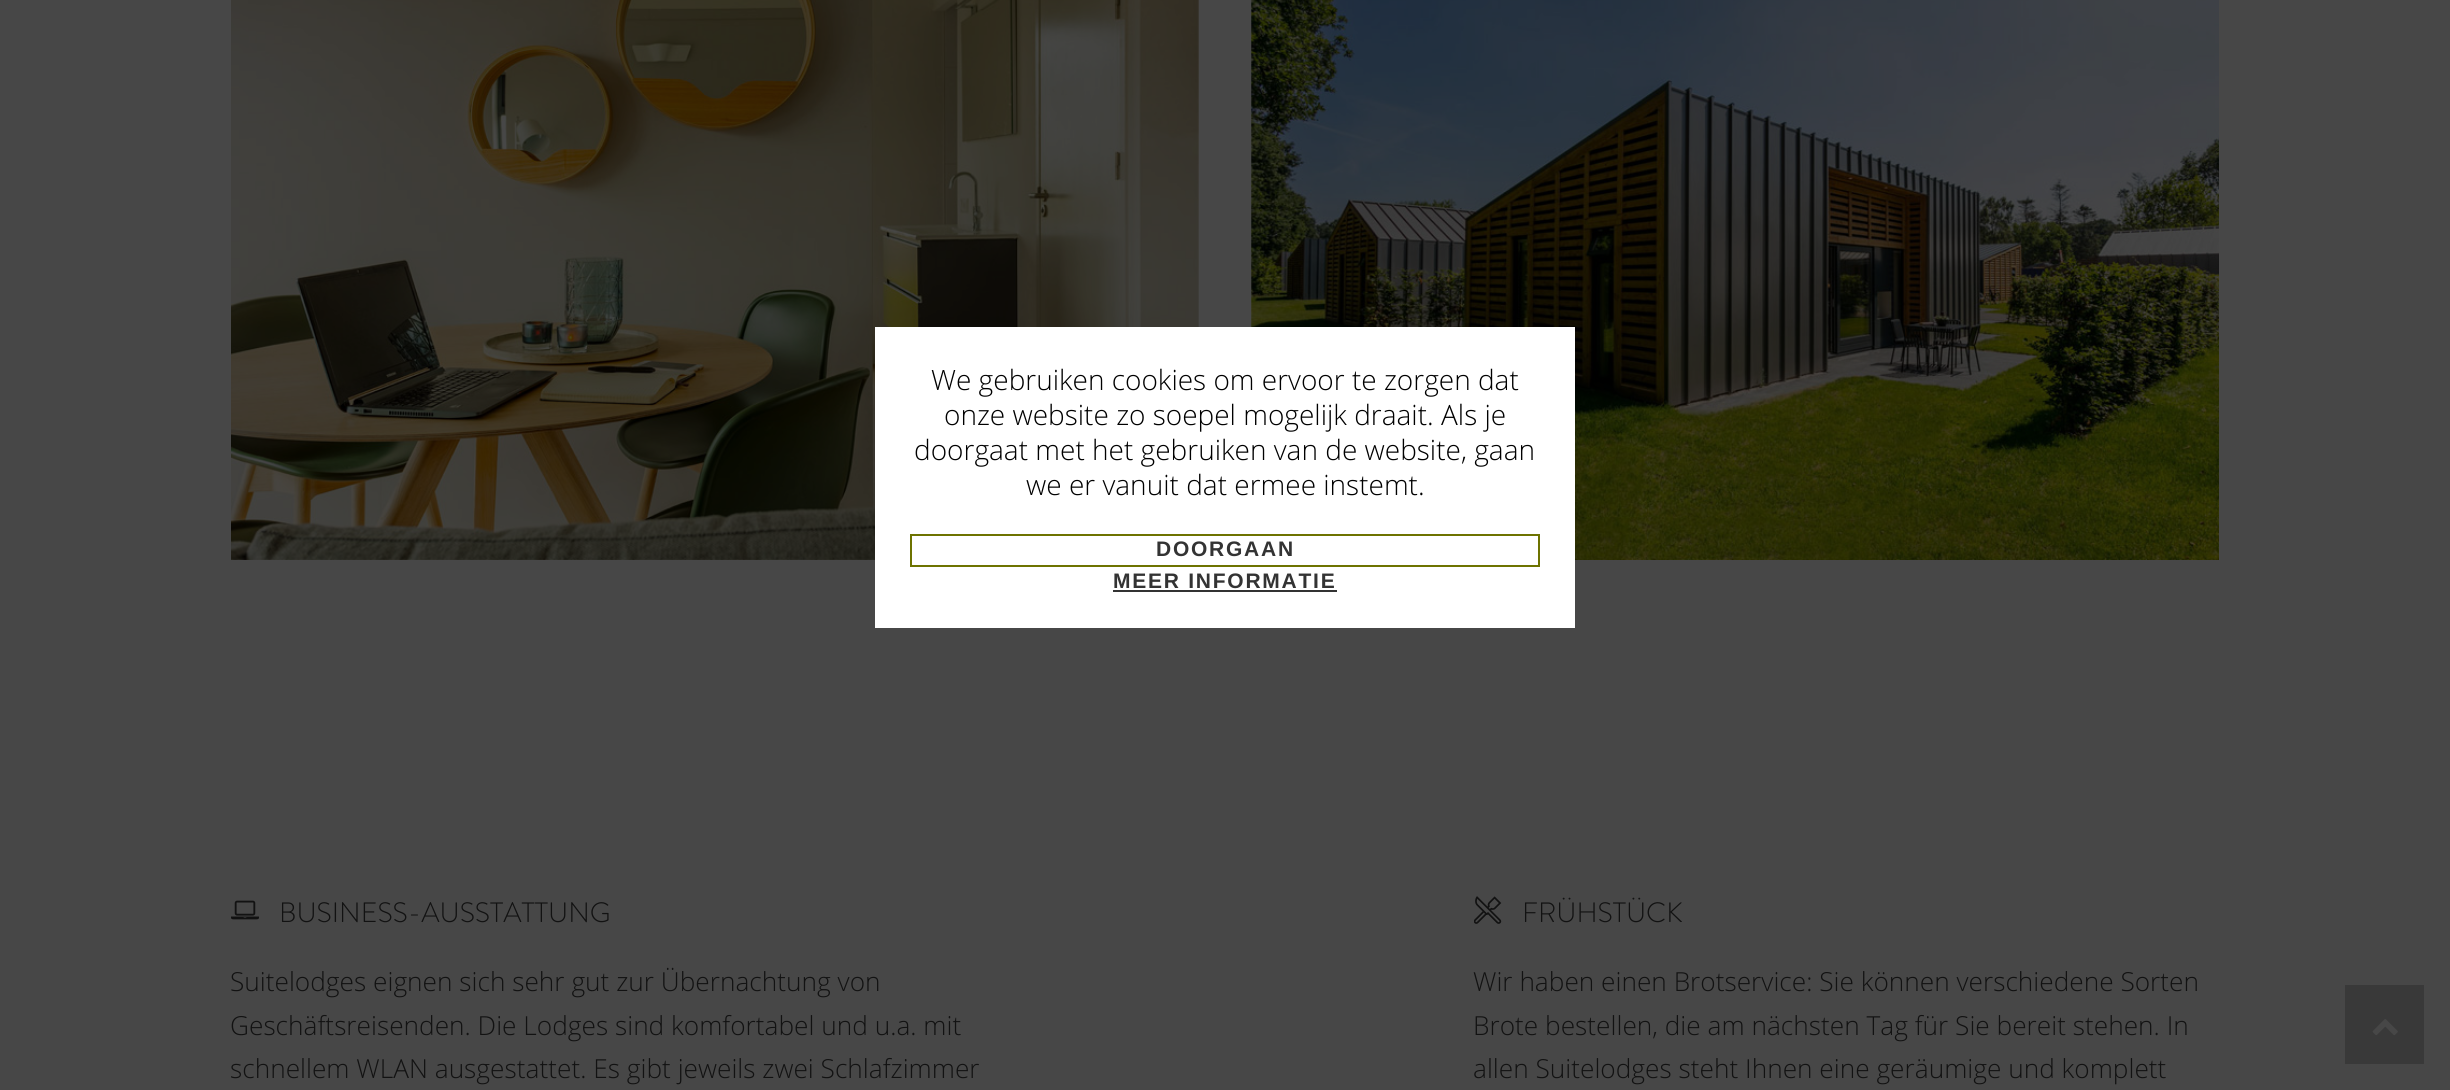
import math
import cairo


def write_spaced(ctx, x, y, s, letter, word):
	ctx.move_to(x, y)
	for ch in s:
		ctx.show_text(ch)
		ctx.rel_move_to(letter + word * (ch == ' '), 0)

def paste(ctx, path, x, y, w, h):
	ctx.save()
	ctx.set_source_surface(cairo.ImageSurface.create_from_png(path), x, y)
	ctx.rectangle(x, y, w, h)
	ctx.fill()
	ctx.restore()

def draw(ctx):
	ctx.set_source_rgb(0.278, 0.278, 0.278)
	ctx.paint()
	paste(ctx, 'media/1.png', 231, 0, 968, 560)
	paste(ctx, 'media/2.png', 1251, 0, 968, 560)
	ctx.set_source_rgb(1, 1, 1)
	ctx.rectangle(875, 327, 700, 301)
	ctx.fill()
	ctx.select_font_face('Open Sans Light')
	ctx.set_font_size(28)
	ctx.set_source_rgb(0, 0, 0)
	for x, y, s in [
		(931, 390, 'We gebruiken cookies om ervoor te zorgen dat'),
		(944, 425, 'onze website zo soepel mogelijk draait. Als je'),
		(914, 460, 'doorgaat met het gebruiken van de website, gaan'),
		(1026, 495, 'we er vanuit dat ermee instemt.'),
	]:
		ctx.move_to(x, y)
		ctx.show_text(s)
	ctx.rectangle(911, 535, 628, 31)
	ctx.set_source_rgb(0.427, 0.451, 0)
	ctx.stroke()
	ctx.select_font_face('Liberation Sans', cairo.FONT_SLANT_NORMAL, cairo.FONT_WEIGHT_BOLD)
	ctx.set_font_size(21)
	ctx.set_source_rgb(0.2, 0.2, 0.2)
	write_spaced(ctx, 1156, 556, 'DOORGAAN', 1.75, 0)
	write_spaced(ctx, 1113, 588, 'MEER INFORMATIE', 1.75, 0)
	ctx.rectangle(1113, 590, 224, 2)
	ctx.fill()
	paste(ctx, 'media/3.png', 231, 900, 28, 20)
	ctx.select_font_face('Brandon Grotesque Light')
	ctx.set_font_size(28)
	ctx.set_source_rgb(0.071, 0.071, 0.071)
	ctx.move_to(279, 922)
	ctx.show_text('BUSINESS-AUSSTATTUNG')
	ctx.select_font_face('Open Sans Light')
	ctx.set_font_size(26.25)
	for x, y, s in [
		(230, 991, 'Suitelodges eignen sich sehr gut zur Übernachtung von'),
		(230, 1035, 'Geschäftsreisenden. Die Lodges sind komfortabel und u.a. mit'),
		(230, 1078, 'schnellem WLAN ausgestattet. Es gibt jeweils zwei Schlafzimmer'),
	]:
		ctx.move_to(x, y)
		ctx.show_text(s)
	paste(ctx, 'media/4.png', 1474, 896, 28, 28)
	ctx.select_font_face('Brandon Grotesque Light')
	ctx.set_font_size(28)
	ctx.move_to(1522, 922)
	ctx.show_text('FRÜHSTÜCK')
	ctx.select_font_face('Open Sans Light')
	ctx.set_font_size(26.25)
	for x, y, s in [
		(1473, 991, 'Wir haben einen Brotservice: Sie können verschiedene Sorten'),
		(1473, 1035, 'Brote bestellen, die am nächsten Tag für Sie bereit stehen. In'),
		(1473, 1078, 'allen Suitelodges steht Ihnen eine geräumige und komplett'),
	]:
		ctx.move_to(x, y)
		ctx.show_text(s)
	ctx.set_source_rgb(0.224, 0.224, 0.224)
	ctx.rectangle(2345, 985, 79, 79)
	ctx.fill()
	paste(ctx, 'media/5.png', 2372, 1019, 26, 17)


surface = cairo.ImageSurface(cairo.FORMAT_RGB24, 2450, 1090)
ctx = cairo.Context(surface)
options = cairo.FontOptions()
options.set_hint_metrics(cairo.HINT_METRICS_OFF)
options.set_hint_style(cairo.HINT_STYLE_NONE)
ctx.set_font_options(options)
ctx.set_miter_limit(4)
draw(ctx)
surface.write_to_png('image.png')
